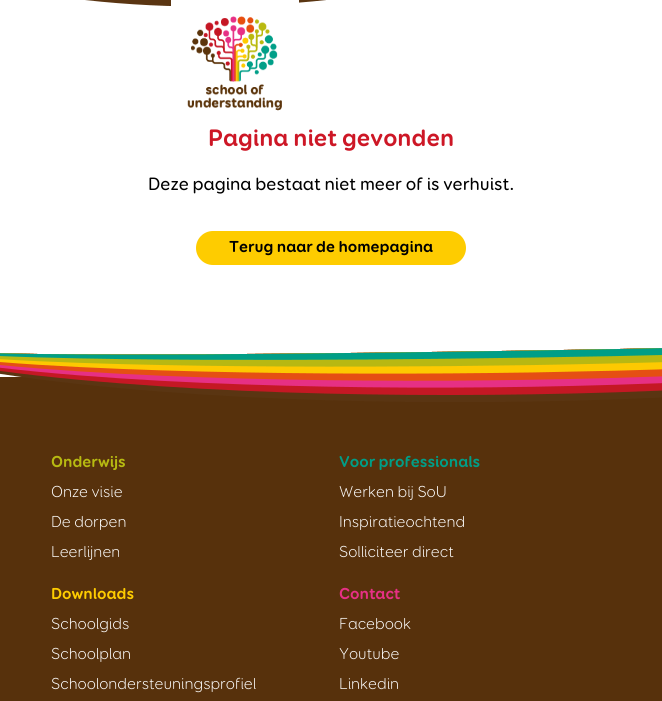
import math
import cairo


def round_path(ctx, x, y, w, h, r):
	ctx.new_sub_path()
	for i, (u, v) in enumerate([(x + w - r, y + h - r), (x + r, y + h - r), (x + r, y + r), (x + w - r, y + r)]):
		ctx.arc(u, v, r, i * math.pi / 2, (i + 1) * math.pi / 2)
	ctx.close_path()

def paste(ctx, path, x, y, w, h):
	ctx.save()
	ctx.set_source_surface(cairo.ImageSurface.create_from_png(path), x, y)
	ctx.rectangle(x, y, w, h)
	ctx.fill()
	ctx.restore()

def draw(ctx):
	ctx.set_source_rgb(1, 1, 1)
	ctx.paint()
	paste(ctx, 'media/1.png', 85, 0, 241, 6)
	ctx.set_source_rgb(1, 1, 1)
	ctx.new_path()
	ctx.move_to(171, 0)
	ctx.line_to(299, 0)
	ctx.line_to(299, 104)
	ctx.curve_to(299, 117.5, 288.5, 128, 275, 128)
	ctx.line_to(195, 128)
	ctx.curve_to(181.5, 128, 171, 117.5, 171, 104)
	ctx.close_path()
	ctx.fill()
	paste(ctx, 'media/2.png', 187, 16, 95, 95)
	ctx.select_font_face('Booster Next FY', cairo.FONT_SLANT_NORMAL, cairo.FONT_WEIGHT_BOLD)
	ctx.set_font_size(24)
	ctx.set_source_rgb(0.804, 0.09, 0.149)
	ctx.move_to(208, 146)
	ctx.show_text('Pagina niet gevonden')
	ctx.select_font_face('Booster Next FY Medium')
	ctx.set_font_size(18)
	ctx.set_source_rgb(0, 0, 0)
	ctx.move_to(148, 190)
	ctx.show_text('Deze pagina bestaat niet meer of is verhuist.')
	ctx.set_source_rgb(0.996, 0.8, 0)
	round_path(ctx, 196, 231, 270, 34, 17)
	ctx.fill()
	ctx.select_font_face('Booster Next FY', cairo.FONT_SLANT_NORMAL, cairo.FONT_WEIGHT_BOLD)
	ctx.set_font_size(16)
	ctx.set_source_rgb(0, 0, 0)
	ctx.move_to(229, 252)
	ctx.show_text('Terug naar de homepagina')
	ctx.set_source_rgb(0.341, 0.192, 0.047)
	ctx.rectangle(0, 377, 662, 324)
	ctx.fill()
	paste(ctx, 'media/3.png', 0, 348, 662, 54)
	ctx.set_source_rgb(0.718, 0.729, 0.067)
	ctx.move_to(51, 467)
	ctx.show_text('Onderwijs')
	ctx.select_font_face('Booster Next FY Light')
	ctx.set_source_rgb(1, 1, 1)
	for x, y, s in [
		(51, 497, 'Onze visie'),
		(51, 527, 'De dorpen'),
		(51, 557, 'Leerlijnen'),
	]:
		ctx.move_to(x, y)
		ctx.show_text(s)
	ctx.select_font_face('Booster Next FY', cairo.FONT_SLANT_NORMAL, cairo.FONT_WEIGHT_BOLD)
	ctx.set_source_rgb(0, 0.62, 0.529)
	ctx.move_to(339, 467)
	ctx.show_text('Voor professionals')
	ctx.select_font_face('Booster Next FY Light')
	ctx.set_source_rgb(1, 1, 1)
	for x, y, s in [
		(339, 497, 'Werken bij SoU'),
		(339, 527, 'Inspiratieochtend'),
		(339, 557, 'Solliciteer direct'),
	]:
		ctx.move_to(x, y)
		ctx.show_text(s)
	ctx.select_font_face('Booster Next FY', cairo.FONT_SLANT_NORMAL, cairo.FONT_WEIGHT_BOLD)
	ctx.set_source_rgb(0.996, 0.8, 0)
	ctx.move_to(51, 599)
	ctx.show_text('Downloads')
	ctx.select_font_face('Booster Next FY Light')
	ctx.set_source_rgb(1, 1, 1)
	for x, y, s in [
		(51, 629, 'Schoolgids'),
		(51, 659, 'Schoolplan'),
		(51, 689, 'Schoolondersteuningsprofiel'),
	]:
		ctx.move_to(x, y)
		ctx.show_text(s)
	ctx.select_font_face('Booster Next FY', cairo.FONT_SLANT_NORMAL, cairo.FONT_WEIGHT_BOLD)
	ctx.set_source_rgb(0.906, 0.188, 0.522)
	ctx.move_to(339, 599)
	ctx.show_text('Contact')
	ctx.select_font_face('Booster Next FY Light')
	ctx.set_source_rgb(1, 1, 1)
	for x, y, s in [
		(339, 629, 'Facebook'),
		(339, 659, 'Youtube'),
		(339, 689, 'Linkedin'),
	]:
		ctx.move_to(x, y)
		ctx.show_text(s)


surface = cairo.ImageSurface(cairo.FORMAT_RGB24, 662, 701)
ctx = cairo.Context(surface)
options = cairo.FontOptions()
options.set_hint_metrics(cairo.HINT_METRICS_OFF)
options.set_hint_style(cairo.HINT_STYLE_NONE)
ctx.set_font_options(options)
ctx.set_miter_limit(4)
draw(ctx)
surface.write_to_png('image.png')
